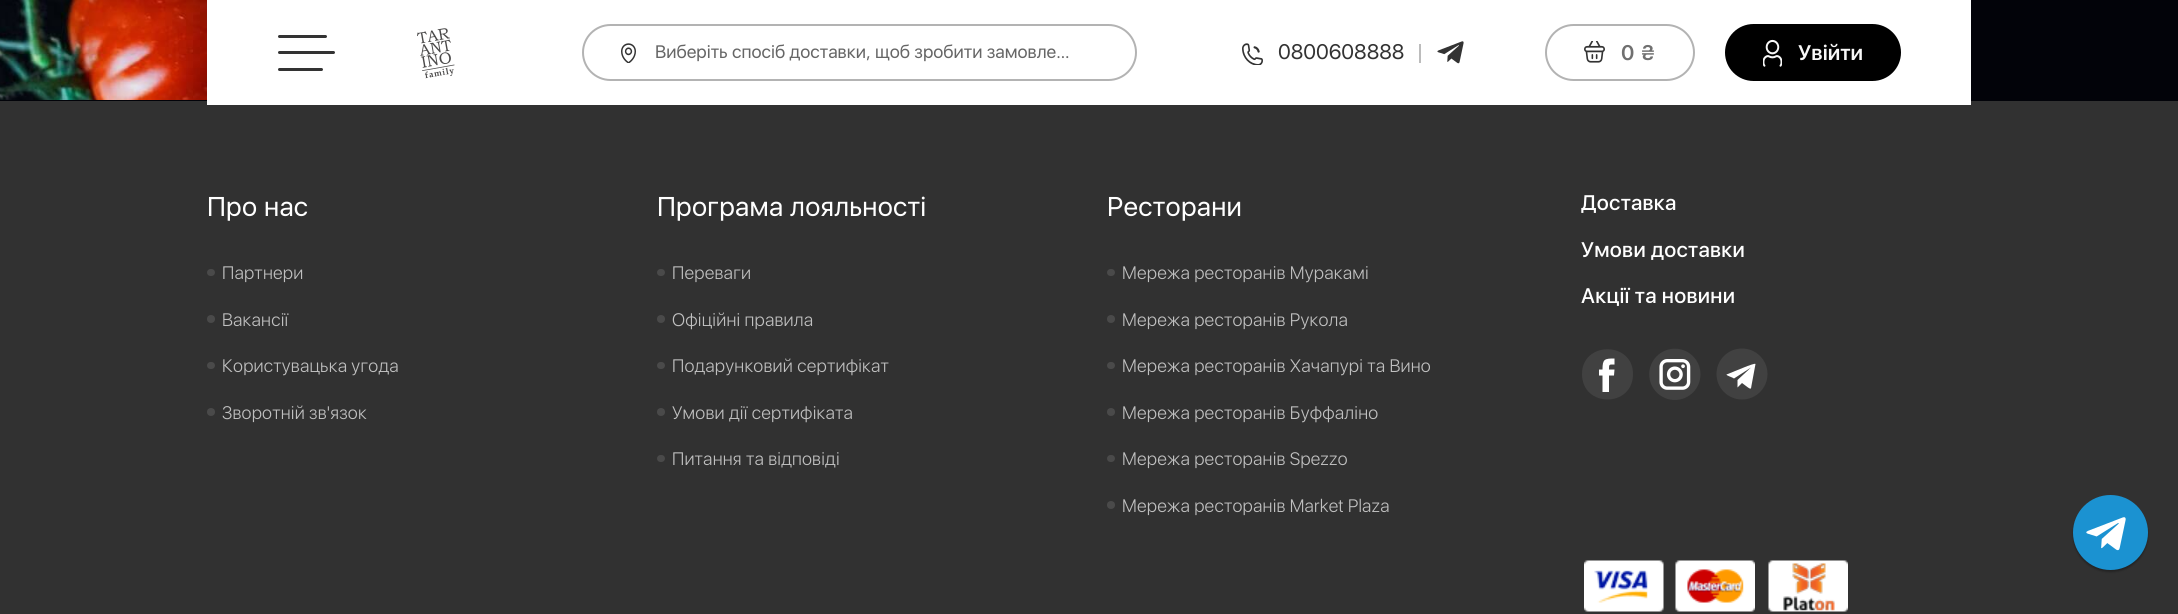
import math
import cairo


def write_spaced(ctx, x, y, s, letter, word):
	ctx.move_to(x, y)
	for ch in s:
		ctx.show_text(ch)
		ctx.rel_move_to(letter + word * (ch == ' '), 0)

def round_path(ctx, x, y, w, h, r):
	ctx.new_sub_path()
	for i, (u, v) in enumerate([(x + w - r, y + h - r), (x + r, y + h - r), (x + r, y + r), (x + w - r, y + r)]):
		ctx.arc(u, v, r, i * math.pi / 2, (i + 1) * math.pi / 2)
	ctx.close_path()

def blur_box(ctx, x, y, w, h, r, blur, alpha):
	ctx.push_group_with_content(cairo.CONTENT_ALPHA)
	ctx.set_operator(cairo.OPERATOR_SOURCE)
	for i in range(15, -16, -2):
		e = blur * i / 6
		if min(w, h) + 2 * e > 0:
			ctx.set_source_rgba(0, 0, 0, alpha * math.erfc((i - 1) / 8.5) / 2)
			round_path(ctx, x - e, y - e, w + 2 * e, h + 2 * e, max(0, min(r + e + blur * .6, min(w, h) / 2 + e)))
			ctx.fill()
	ctx.mask(ctx.pop_group())

def paste(ctx, path, x, y, w, h):
	ctx.save()
	ctx.set_source_surface(cairo.ImageSurface.create_from_png(path), x, y)
	ctx.rectangle(x, y, w, h)
	ctx.fill()
	ctx.restore()

def draw(ctx):
	ctx.set_source_rgb(0.192, 0.192, 0.192)
	ctx.paint()
	ctx.set_source_rgb(0.008, 0.012, 0.039)
	ctx.rectangle(0, 0, 2178, 101)
	ctx.fill()
	paste(ctx, 'media/1.png', 0, 0, 207, 100)
	ctx.set_source_rgb(1, 1, 1)
	ctx.rectangle(207, 0, 1764, 105)
	ctx.fill()
	ctx.set_source_rgb(0.2, 0.2, 0.2)
	round_path(ctx, 278, 51, 57, 3, 1.5)
	ctx.fill()
	round_path(ctx, 278, 35, 49, 3, 1.5)
	ctx.fill()
	round_path(ctx, 278, 68, 45, 3, 1.5)
	ctx.fill()
	paste(ctx, 'media/2.png', 417, 28, 38, 51)
	round_path(ctx, 583, 25, 553, 55, 27.5)
	ctx.set_source_rgb(0.702, 0.702, 0.702)
	ctx.stroke()
	paste(ctx, 'media/3.png', 621, 43, 15, 20)
	ctx.select_font_face('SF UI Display')
	ctx.set_font_size(18)
	ctx.set_source_rgb(0.4, 0.4, 0.4)
	ctx.move_to(655, 58)
	ctx.show_text('Виберіть спосіб доставки, щоб зробити замовле…')
	paste(ctx, 'media/4.png', 1242, 43, 21, 22)
	ctx.set_font_size(21)
	ctx.set_source_rgb(0.2, 0.2, 0.2)
	ctx.move_to(1278, 59)
	ctx.show_text('0800608888')
	ctx.set_source_rgb(0.737, 0.737, 0.737)
	ctx.rectangle(1419, 44, 2, 19)
	ctx.fill()
	paste(ctx, 'media/5.png', 1437, 41, 27, 23)
	round_path(ctx, 1546, 25, 148, 55, 27.5)
	ctx.set_source_rgb(0.702, 0.702, 0.702)
	ctx.stroke()
	paste(ctx, 'media/6.png', 1584, 41, 21, 22)
	ctx.select_font_face('SF UI Display SemiBold')
	ctx.set_source_rgb(0.439, 0.439, 0.439)
	ctx.move_to(1621, 60)
	ctx.show_text('0')
	ctx.move_to(1641, 60)
	ctx.show_text('₴')
	ctx.set_source_rgb(0, 0, 0)
	round_path(ctx, 1725, 24, 176, 57, 28.5)
	ctx.fill()
	paste(ctx, 'media/7.png', 1763, 39, 19, 28)
	ctx.set_source_rgb(0.969, 0.969, 0.969)
	ctx.move_to(1798, 60)
	ctx.show_text('Увійти')
	ctx.select_font_face('SF UI Display')
	ctx.set_font_size(27)
	ctx.set_source_rgb(1, 1, 1)
	write_spaced(ctx, 207, 216, 'Про нас', 0.25, 0)
	ctx.set_source_rgb(0.29, 0.29, 0.29)
	round_path(ctx, 207, 269, 8, 7, 3.5)
	ctx.fill()
	ctx.select_font_face('SF UI Display Light')
	ctx.set_font_size(18)
	ctx.set_source_rgb(0.753, 0.753, 0.753)
	write_spaced(ctx, 222, 279, 'Партнери', 0.2, 0)
	ctx.set_source_rgb(0.29, 0.29, 0.29)
	ctx.new_path()
	ctx.arc(211, 319, 4, 0, 2 * math.pi)
	ctx.fill()
	ctx.set_source_rgb(0.753, 0.753, 0.753)
	write_spaced(ctx, 222, 326, 'Вакансії', 0.2, 0)
	ctx.set_source_rgb(0.29, 0.29, 0.29)
	round_path(ctx, 207, 362, 8, 7, 3.5)
	ctx.fill()
	ctx.set_source_rgb(0.753, 0.753, 0.753)
	write_spaced(ctx, 222, 372, 'Користувацька угода', 0.2, 0)
	ctx.set_source_rgb(0.29, 0.29, 0.29)
	ctx.new_path()
	ctx.arc(211, 412, 4, 0, 2 * math.pi)
	ctx.fill()
	ctx.set_source_rgb(0.753, 0.753, 0.753)
	write_spaced(ctx, 222, 419, 'Зворотній зв\'язок', 0.2, 0)
	ctx.select_font_face('SF UI Display')
	ctx.set_font_size(27)
	ctx.set_source_rgb(1, 1, 1)
	write_spaced(ctx, 657, 216, 'Програма лояльності', 0.25, 0)
	ctx.set_source_rgb(0.29, 0.29, 0.29)
	round_path(ctx, 657, 269, 8, 7, 3.5)
	ctx.fill()
	ctx.select_font_face('SF UI Display Light')
	ctx.set_font_size(18)
	ctx.set_source_rgb(0.753, 0.753, 0.753)
	write_spaced(ctx, 672, 279, 'Переваги', 0.2, 0)
	ctx.set_source_rgb(0.29, 0.29, 0.29)
	ctx.new_path()
	ctx.arc(661, 319, 4, 0, 2 * math.pi)
	ctx.fill()
	ctx.set_source_rgb(0.753, 0.753, 0.753)
	write_spaced(ctx, 672, 326, 'Офіційні правила', 0.2, 0)
	ctx.set_source_rgb(0.29, 0.29, 0.29)
	round_path(ctx, 657, 362, 8, 7, 3.5)
	ctx.fill()
	ctx.set_source_rgb(0.753, 0.753, 0.753)
	write_spaced(ctx, 672, 372, 'Подарунковий сертифікат', 0.2, 0)
	ctx.set_source_rgb(0.29, 0.29, 0.29)
	ctx.new_path()
	ctx.arc(661, 412, 4, 0, 2 * math.pi)
	ctx.fill()
	ctx.set_source_rgb(0.753, 0.753, 0.753)
	write_spaced(ctx, 672, 419, 'Умови дії сертифіката', 0.2, 0)
	ctx.set_source_rgb(0.29, 0.29, 0.29)
	round_path(ctx, 657, 455, 8, 7, 3.5)
	ctx.fill()
	ctx.set_source_rgb(0.753, 0.753, 0.753)
	write_spaced(ctx, 672, 465, 'Питання та відповіді', 0.2, 0)
	ctx.select_font_face('SF UI Display')
	ctx.set_font_size(27)
	ctx.set_source_rgb(1, 1, 1)
	write_spaced(ctx, 1107, 216, 'Ресторани', 0.25, 0)
	ctx.set_source_rgb(0.29, 0.29, 0.29)
	round_path(ctx, 1107, 269, 8, 7, 3.5)
	ctx.fill()
	ctx.select_font_face('SF UI Display Light')
	ctx.set_font_size(18)
	ctx.set_source_rgb(0.753, 0.753, 0.753)
	write_spaced(ctx, 1122, 279, 'Мережа ресторанів Муракамі', 0.2, 0)
	ctx.set_source_rgb(0.29, 0.29, 0.29)
	ctx.new_path()
	ctx.arc(1111, 319, 4, 0, 2 * math.pi)
	ctx.fill()
	ctx.set_source_rgb(0.753, 0.753, 0.753)
	write_spaced(ctx, 1122, 326, 'Мережа ресторанів Рукола', 0.2, 0)
	ctx.set_source_rgb(0.29, 0.29, 0.29)
	round_path(ctx, 1107, 362, 8, 7, 3.5)
	ctx.fill()
	ctx.set_source_rgb(0.753, 0.753, 0.753)
	write_spaced(ctx, 1122, 372, 'Мережа ресторанів Хачапурі та Вино', 0.2, 0)
	ctx.set_source_rgb(0.29, 0.29, 0.29)
	ctx.new_path()
	ctx.arc(1111, 412, 4, 0, 2 * math.pi)
	ctx.fill()
	ctx.set_source_rgb(0.753, 0.753, 0.753)
	write_spaced(ctx, 1122, 419, 'Мережа ресторанів Буффаліно', 0.2, 0)
	ctx.set_source_rgb(0.29, 0.29, 0.29)
	round_path(ctx, 1107, 455, 8, 7, 3.5)
	ctx.fill()
	ctx.set_source_rgb(0.753, 0.753, 0.753)
	write_spaced(ctx, 1122, 465, 'Мережа ресторанів Spezzo', 0.2, 0)
	ctx.set_source_rgb(0.29, 0.29, 0.29)
	ctx.new_path()
	ctx.arc(1111, 505, 4, 0, 2 * math.pi)
	ctx.fill()
	ctx.set_source_rgb(0.753, 0.753, 0.753)
	write_spaced(ctx, 1122, 512, 'Мережа ресторанів Market Plaza', 0.2, 0)
	ctx.select_font_face('SF UI Display Medium')
	ctx.set_font_size(21)
	ctx.set_source_rgb(1, 1, 1)
	for x, y, s in [
		(1581, 210, 'Доставка'),
		(1581, 257, 'Умови доставки'),
		(1581, 303, 'Акції та новини'),
	]:
		write_spaced(ctx, x, y, s, 0.25, 0)
	ctx.set_source_rgb(0.255, 0.255, 0.255)
	ctx.new_path()
	ctx.move_to(1633, 374)
	ctx.curve_to(1633, 408, 1582, 408, 1582, 374)
	ctx.curve_to(1582, 341, 1633, 341, 1633, 374)
	ctx.close_path()
	ctx.fill()
	ctx.set_source_rgb(1, 1, 1)
	ctx.new_path()
	ctx.move_to(1614, 375.5)
	ctx.line_to(1609, 375.5)
	ctx.line_to(1609, 392)
	ctx.line_to(1602.5, 392)
	ctx.line_to(1602.5, 375.5)
	ctx.line_to(1599, 375.5)
	ctx.line_to(1599, 369.5)
	ctx.line_to(1602.5, 369.5)
	ctx.curve_to(1602.5, 359, 1604.5, 358.5, 1614.5, 358.5)
	ctx.line_to(1614.5, 364.5)
	ctx.curve_to(1609, 364.5, 1609, 364, 1609, 369.5)
	ctx.line_to(1614.5, 369.5)
	ctx.close_path()
	ctx.fill()
	ctx.arc(1675.5, 375.5, 22.5, 0, 2 * math.pi)
	ctx.fill()
	paste(ctx, 'media/8.png', 1649, 348, 52, 52)
	ctx.set_source_rgb(0.255, 0.255, 0.255)
	ctx.arc(1742, 374, 25.5, 0, 2 * math.pi)
	ctx.fill()
	ctx.set_source_rgb(1, 1, 1)
	ctx.new_path()
	ctx.move_to(1737.5, 380)
	ctx.line_to(1737.5, 387.5)
	ctx.line_to(1742, 383)
	ctx.line_to(1748, 387.5)
	ctx.curve_to(1751, 389.5, 1751, 389, 1751.5, 385.5)
	ctx.line_to(1755.5, 364)
	ctx.curve_to(1755, 363, 1748, 366, 1747.5, 366)
	ctx.line_to(1726.5, 374.5)
	ctx.curve_to(1726, 375.5, 1733, 377.5, 1734, 378.5)
	ctx.line_to(1751, 367.5)
	ctx.close_path()
	ctx.fill()
	paste(ctx, 'media/9.png', 1584, 560, 80, 52)
	paste(ctx, 'media/10.png', 1675, 560, 80, 52)
	paste(ctx, 'media/11.png', 1768, 560, 80, 52)
	ctx.set_source_rgb(0, 0, 0)
	blur_box(ctx, 2073, 497, 75, 75, 37.5, 1, 0.3)
	ctx.set_source_rgb(0.106, 0.573, 0.82)
	ctx.arc(2110.5, 532.5, 37.5, 0, 2 * math.pi)
	ctx.fill()
	paste(ctx, 'media/12.png', 2086, 517, 40, 34)


surface = cairo.ImageSurface(cairo.FORMAT_RGB24, 2178, 614)
ctx = cairo.Context(surface)
options = cairo.FontOptions()
options.set_hint_metrics(cairo.HINT_METRICS_OFF)
options.set_hint_style(cairo.HINT_STYLE_NONE)
ctx.set_font_options(options)
ctx.set_miter_limit(4)
draw(ctx)
surface.write_to_png('image.png')
